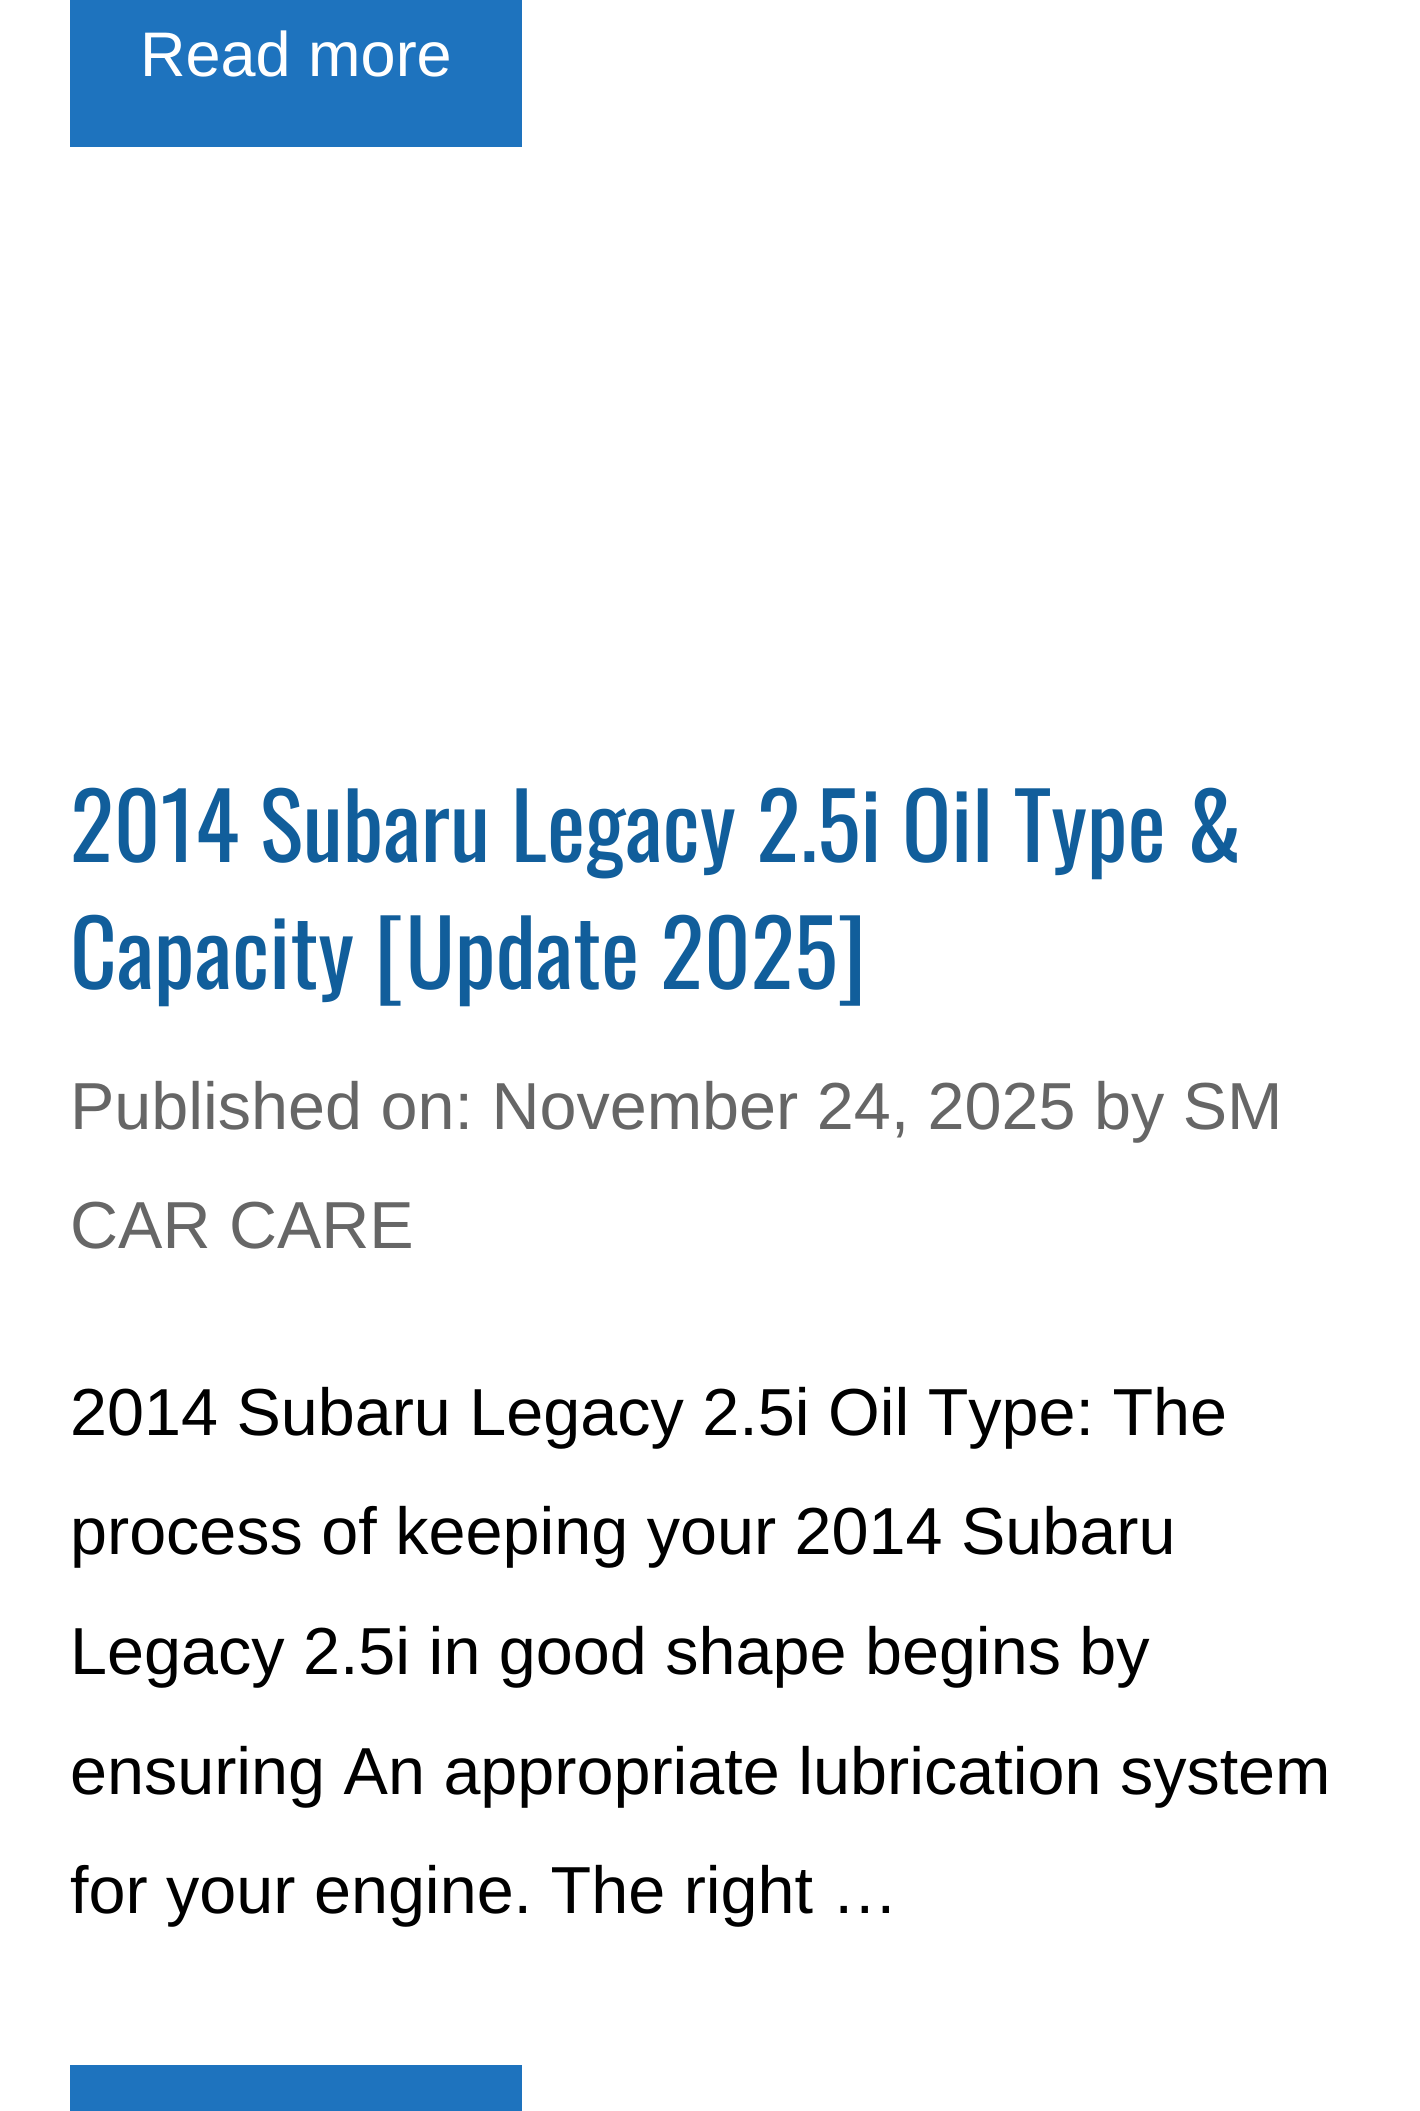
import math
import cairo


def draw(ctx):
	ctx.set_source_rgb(1, 1, 1)
	ctx.paint()
	ctx.set_source_rgb(0.118, 0.451, 0.745)
	ctx.rectangle(70, 0, 452, 147)
	ctx.fill()
	ctx.select_font_face('Liberation Sans')
	ctx.set_font_size(63)
	ctx.set_source_rgb(1, 1, 1)
	ctx.move_to(140, 76)
	ctx.show_text('Read more')
	ctx.select_font_face('Oswald')
	ctx.set_font_size(91)
	ctx.set_source_rgb(0.067, 0.369, 0.608)
	ctx.move_to(70, 862)
	ctx.show_text('2014 Subaru Legacy 2.5i Oil Type &')
	ctx.move_to(70, 989)
	ctx.show_text('Capacity [Update 2025]')
	ctx.select_font_face('Liberation Sans')
	ctx.set_font_size(66.5)
	ctx.set_source_rgb(0.4, 0.4, 0.4)
	ctx.move_to(70, 1129)
	ctx.show_text('Published on: November 24, 2025 by SM')
	ctx.move_to(70, 1248)
	ctx.show_text('CAR CARE')
	ctx.set_source_rgb(0, 0, 0)
	for x, y, s in [
		(70, 1435, '2014 Subaru Legacy 2.5i Oil Type: The'),
		(70, 1554, 'process of keeping your 2014 Subaru'),
		(70, 1674, 'Legacy 2.5i in good shape begins by'),
		(70, 1794, 'ensuring An appropriate lubrication system'),
		(70, 1913, 'for your engine. The right …'),
	]:
		ctx.move_to(x, y)
		ctx.show_text(s)
	ctx.set_source_rgb(0.118, 0.451, 0.745)
	ctx.rectangle(70, 2065, 452, 46)
	ctx.fill()


surface = cairo.ImageSurface(cairo.FORMAT_RGB24, 1420, 2111)
ctx = cairo.Context(surface)
options = cairo.FontOptions()
options.set_hint_metrics(cairo.HINT_METRICS_OFF)
options.set_hint_style(cairo.HINT_STYLE_NONE)
ctx.set_font_options(options)
ctx.set_miter_limit(4)
draw(ctx)
surface.write_to_png('image.png')
